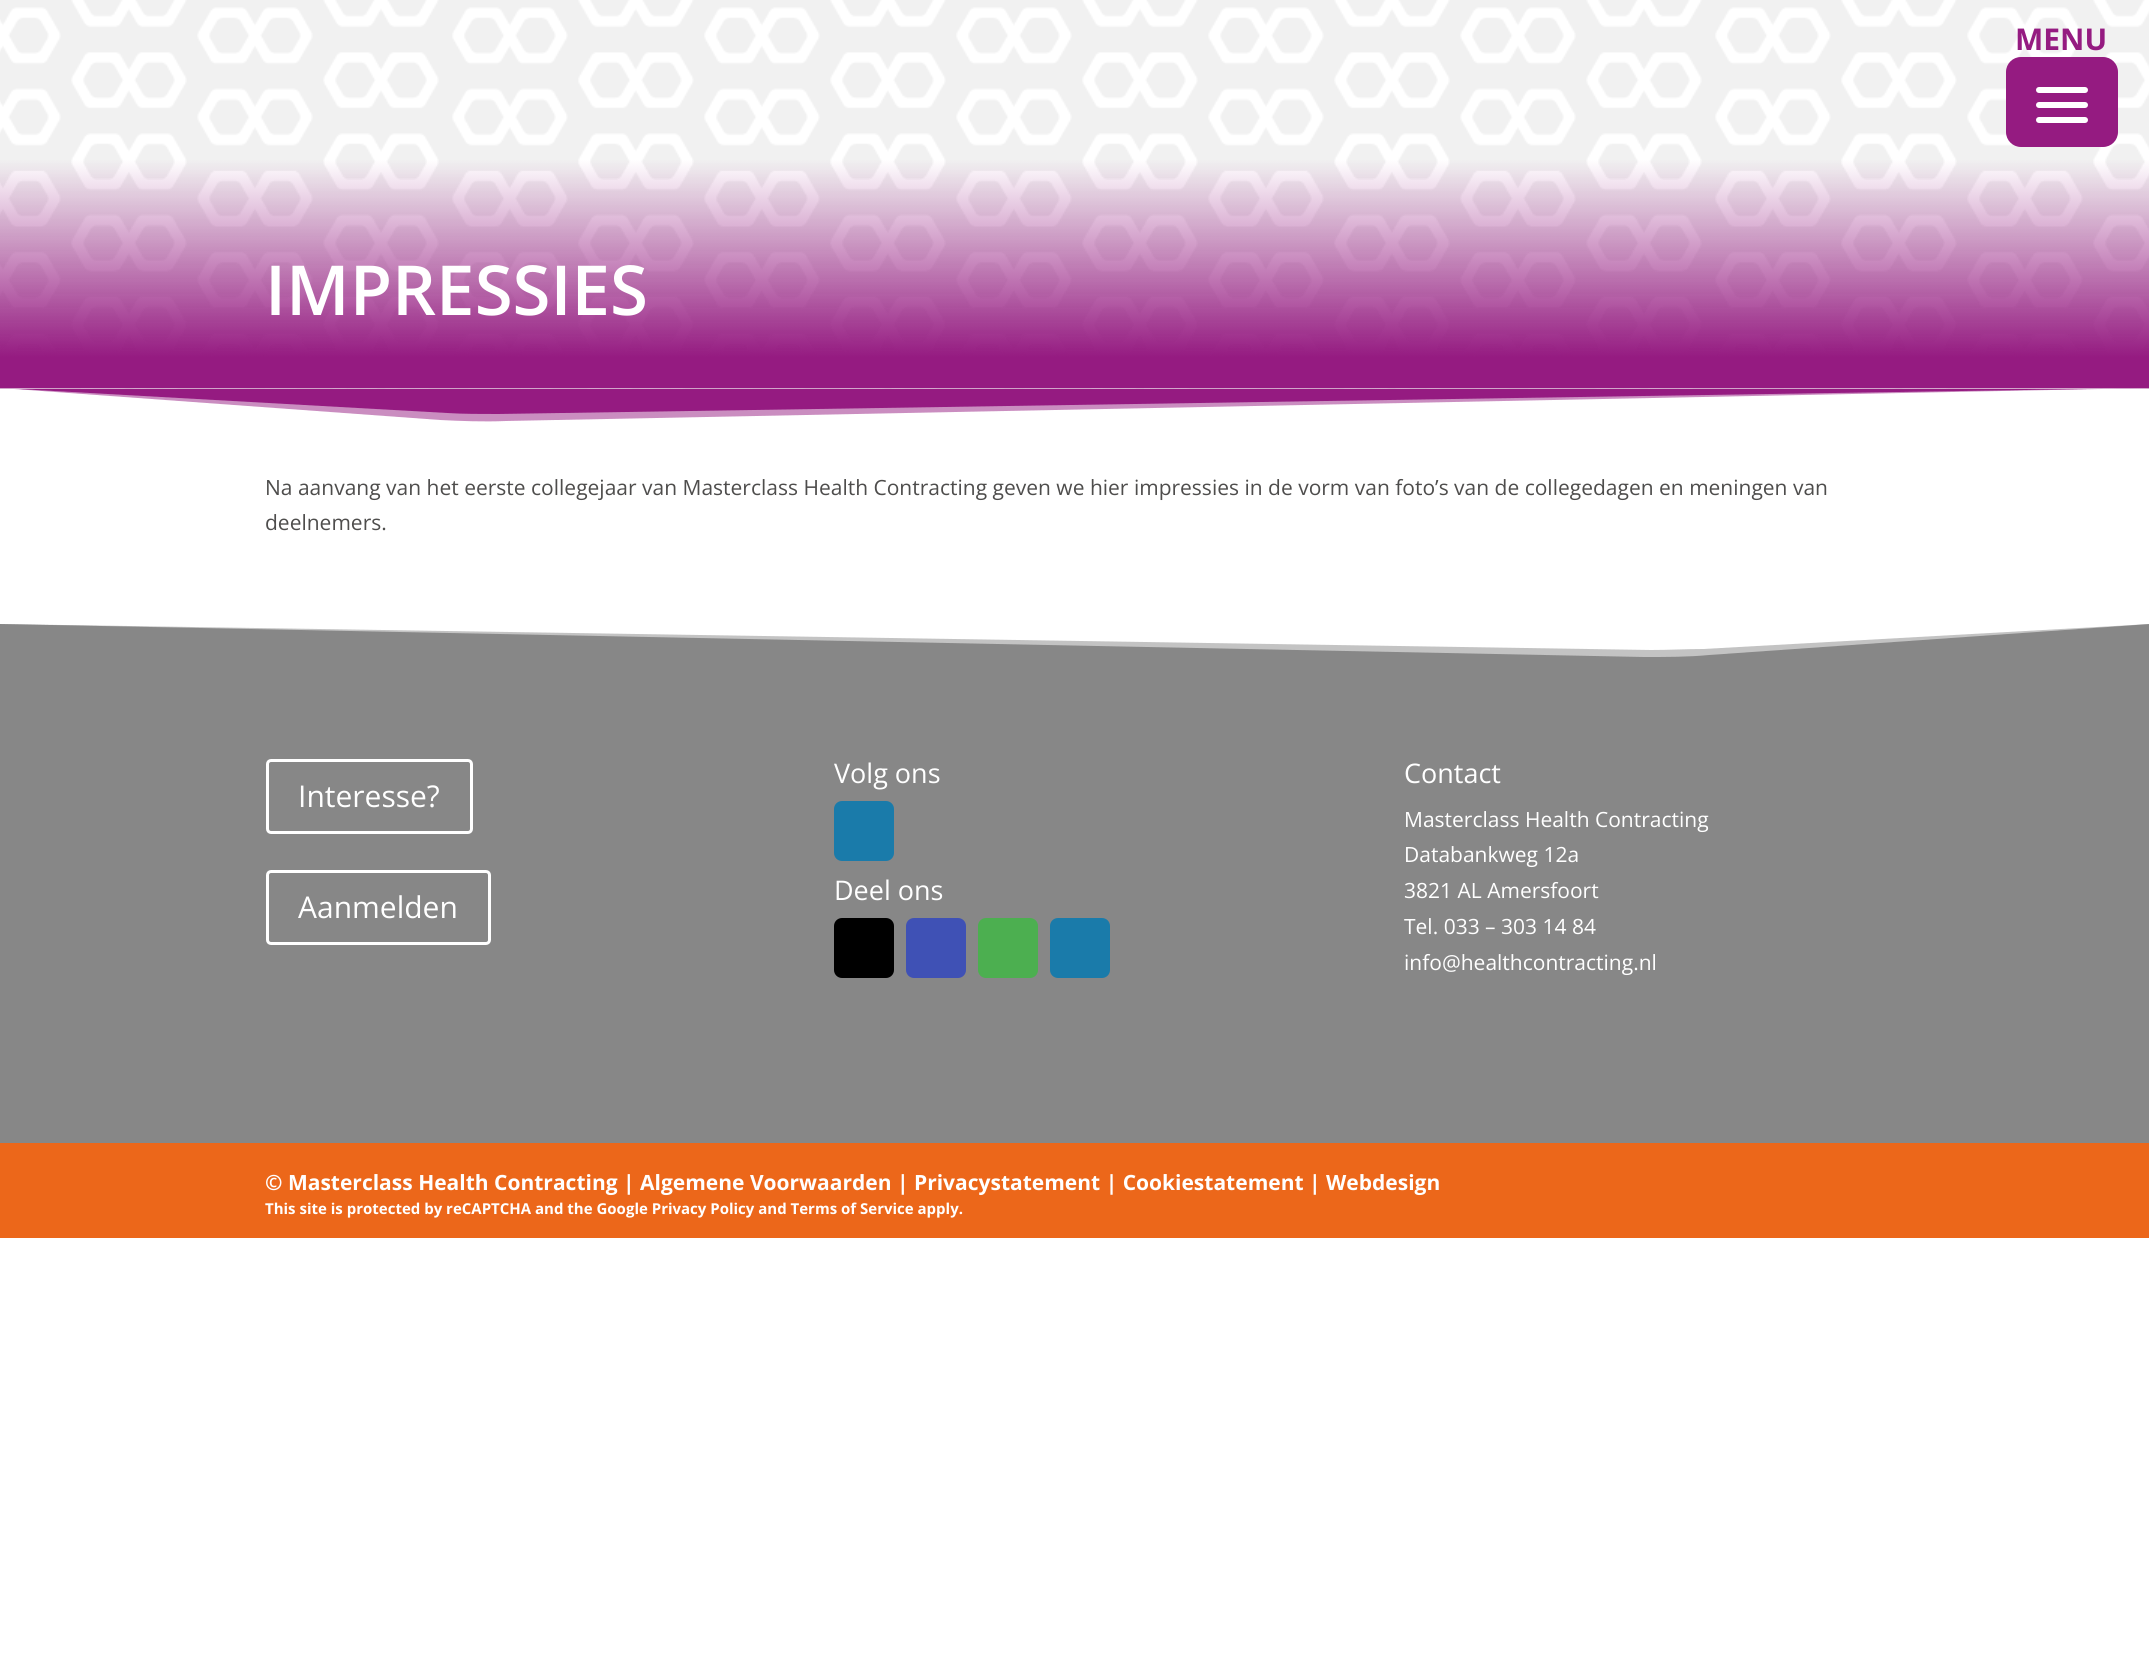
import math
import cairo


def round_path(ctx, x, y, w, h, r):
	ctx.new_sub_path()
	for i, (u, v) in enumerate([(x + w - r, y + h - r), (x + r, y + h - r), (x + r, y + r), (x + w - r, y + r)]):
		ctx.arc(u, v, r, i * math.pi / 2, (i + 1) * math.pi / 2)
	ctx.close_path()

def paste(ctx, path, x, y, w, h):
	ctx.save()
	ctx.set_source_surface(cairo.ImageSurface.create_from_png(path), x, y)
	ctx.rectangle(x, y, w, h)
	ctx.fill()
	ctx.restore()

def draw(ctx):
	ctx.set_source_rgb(1, 1, 1)
	ctx.paint()
	ctx.set_source_rgb(0.945, 0.945, 0.945)
	ctx.rectangle(0, 0, 2149, 389)
	ctx.fill()
	paste(ctx, 'media/1.png', 0, 0, 2149, 389)
	ctx.select_font_face('Open Sans', cairo.FONT_SLANT_NORMAL, cairo.FONT_WEIGHT_BOLD)
	ctx.set_font_size(30)
	ctx.set_source_rgb(0.584, 0.106, 0.506)
	ctx.move_to(2015, 50)
	ctx.show_text('MENU')
	round_path(ctx, 2006, 57, 112, 90, 15)
	ctx.fill()
	ctx.set_source_rgb(1, 1, 1)
	round_path(ctx, 2036, 87, 52, 6, 3)
	ctx.fill()
	round_path(ctx, 2036, 102, 52, 6, 3)
	ctx.fill()
	round_path(ctx, 2036, 117, 52, 6, 3)
	ctx.fill()
	ctx.select_font_face('Open Sans SemiBold')
	ctx.set_font_size(69)
	ctx.move_to(265, 315)
	ctx.show_text('IMPRESSIES')
	ctx.save()
	ctx.rectangle(0, 389, 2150, 37)
	ctx.clip()
	ctx.set_source_rgb(0.792, 0.553, 0.753)
	ctx.new_path()
	ctx.move_to(506, 421)
	ctx.line_to(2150, 388)
	ctx.line_to(0, 388)
	ctx.line_to(440, 420)
	ctx.curve_to(461, 421, 483, 422, 506, 421)
	ctx.close_path()
	ctx.fill()
	ctx.set_source_rgb(0.584, 0.106, 0.506)
	ctx.new_path()
	ctx.move_to(498, 414)
	ctx.line_to(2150, 388)
	ctx.line_to(0, 388)
	ctx.line_to(447, 413)
	ctx.curve_to(463, 414, 481, 414, 498, 414)
	ctx.close_path()
	ctx.fill()
	ctx.restore()
	ctx.select_font_face('Open Sans')
	ctx.set_font_size(21)
	ctx.set_source_rgb(0.306, 0.302, 0.298)
	ctx.move_to(265, 495)
	ctx.show_text('Na aanvang van het eerste collegejaar van Masterclass Health Contracting geven we hier impressies in de vorm van foto’s van de collegedagen en meningen van')
	ctx.move_to(265, 530)
	ctx.show_text('deelnemers.')
	ctx.set_source_rgb(0.765, 0.765, 0.765)
	ctx.new_path()
	ctx.move_to(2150, 624)
	ctx.line_to(1703, 649)
	ctx.curve_to(1686, 649, 1669, 650, 1651, 650)
	ctx.line_to(0, 624)
	ctx.line_to(0, 662)
	ctx.line_to(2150, 662)
	ctx.close_path()
	ctx.fill()
	ctx.set_source_rgb(0.529, 0.529, 0.529)
	ctx.new_path()
	ctx.move_to(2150, 624)
	ctx.line_to(1709, 655)
	ctx.curve_to(1689, 657, 1666, 657, 1644, 657)
	ctx.line_to(0, 624)
	ctx.line_to(0, 662)
	ctx.line_to(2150, 662)
	ctx.close_path()
	ctx.fill()
	ctx.rectangle(0, 662, 2149, 481)
	ctx.fill()
	round_path(ctx, 267.5, 760.5, 204, 72, 3.5)
	ctx.set_source_rgb(1, 1, 1)
	ctx.set_line_width(3)
	ctx.stroke()
	ctx.set_font_size(30)
	ctx.move_to(298, 807)
	ctx.show_text('Interesse?')
	round_path(ctx, 267.5, 871.5, 222, 72, 3.5)
	ctx.stroke()
	ctx.move_to(298, 918)
	ctx.show_text('Aanmelden')
	ctx.set_font_size(27)
	ctx.move_to(834, 783)
	ctx.show_text('Volg ons')
	ctx.set_source_rgb(0.102, 0.482, 0.667)
	round_path(ctx, 834, 801, 60, 60, 8)
	ctx.fill()
	ctx.set_source_rgb(1, 1, 1)
	ctx.move_to(834, 900)
	ctx.show_text('Deel ons')
	ctx.set_source_rgb(0, 0, 0)
	round_path(ctx, 834, 918, 60, 60, 8)
	ctx.fill()
	ctx.set_source_rgb(0.247, 0.318, 0.71)
	round_path(ctx, 906, 918, 60, 60, 8)
	ctx.fill()
	ctx.set_source_rgb(0.298, 0.686, 0.314)
	round_path(ctx, 978, 918, 60, 60, 8)
	ctx.fill()
	ctx.set_source_rgb(0.102, 0.482, 0.667)
	round_path(ctx, 1050, 918, 60, 60, 8)
	ctx.fill()
	ctx.set_source_rgb(1, 1, 1)
	ctx.move_to(1404, 783)
	ctx.show_text('Contact')
	ctx.set_font_size(21)
	for x, y, s in [
		(1404, 827, 'Masterclass Health Contracting'),
		(1404, 862, 'Databankweg 12a'),
		(1404, 898, '3821 AL Amersfoort'),
		(1404, 934, 'Tel. 033 – 303 14 84'),
		(1404, 970, 'info@healthcontracting.nl'),
	]:
		ctx.move_to(x, y)
		ctx.show_text(s)
	ctx.set_source_rgb(0.925, 0.404, 0.102)
	ctx.rectangle(0, 1143, 2149, 95)
	ctx.fill()
	ctx.select_font_face('Open Sans', cairo.FONT_SLANT_NORMAL, cairo.FONT_WEIGHT_BOLD)
	ctx.set_source_rgb(1, 1, 1)
	ctx.move_to(265, 1190)
	ctx.show_text('© Masterclass Health Contracting | Algemene Voorwaarden | Privacystatement | Cookiestatement | Webdesign')
	ctx.set_font_size(15)
	ctx.move_to(265, 1214)
	ctx.show_text('This site is protected by reCAPTCHA and the Google Privacy Policy and Terms of Service apply.')


surface = cairo.ImageSurface(cairo.FORMAT_RGB24, 2149, 1674)
ctx = cairo.Context(surface)
options = cairo.FontOptions()
options.set_hint_metrics(cairo.HINT_METRICS_OFF)
options.set_hint_style(cairo.HINT_STYLE_NONE)
ctx.set_font_options(options)
ctx.set_miter_limit(4)
draw(ctx)
surface.write_to_png('image.png')
